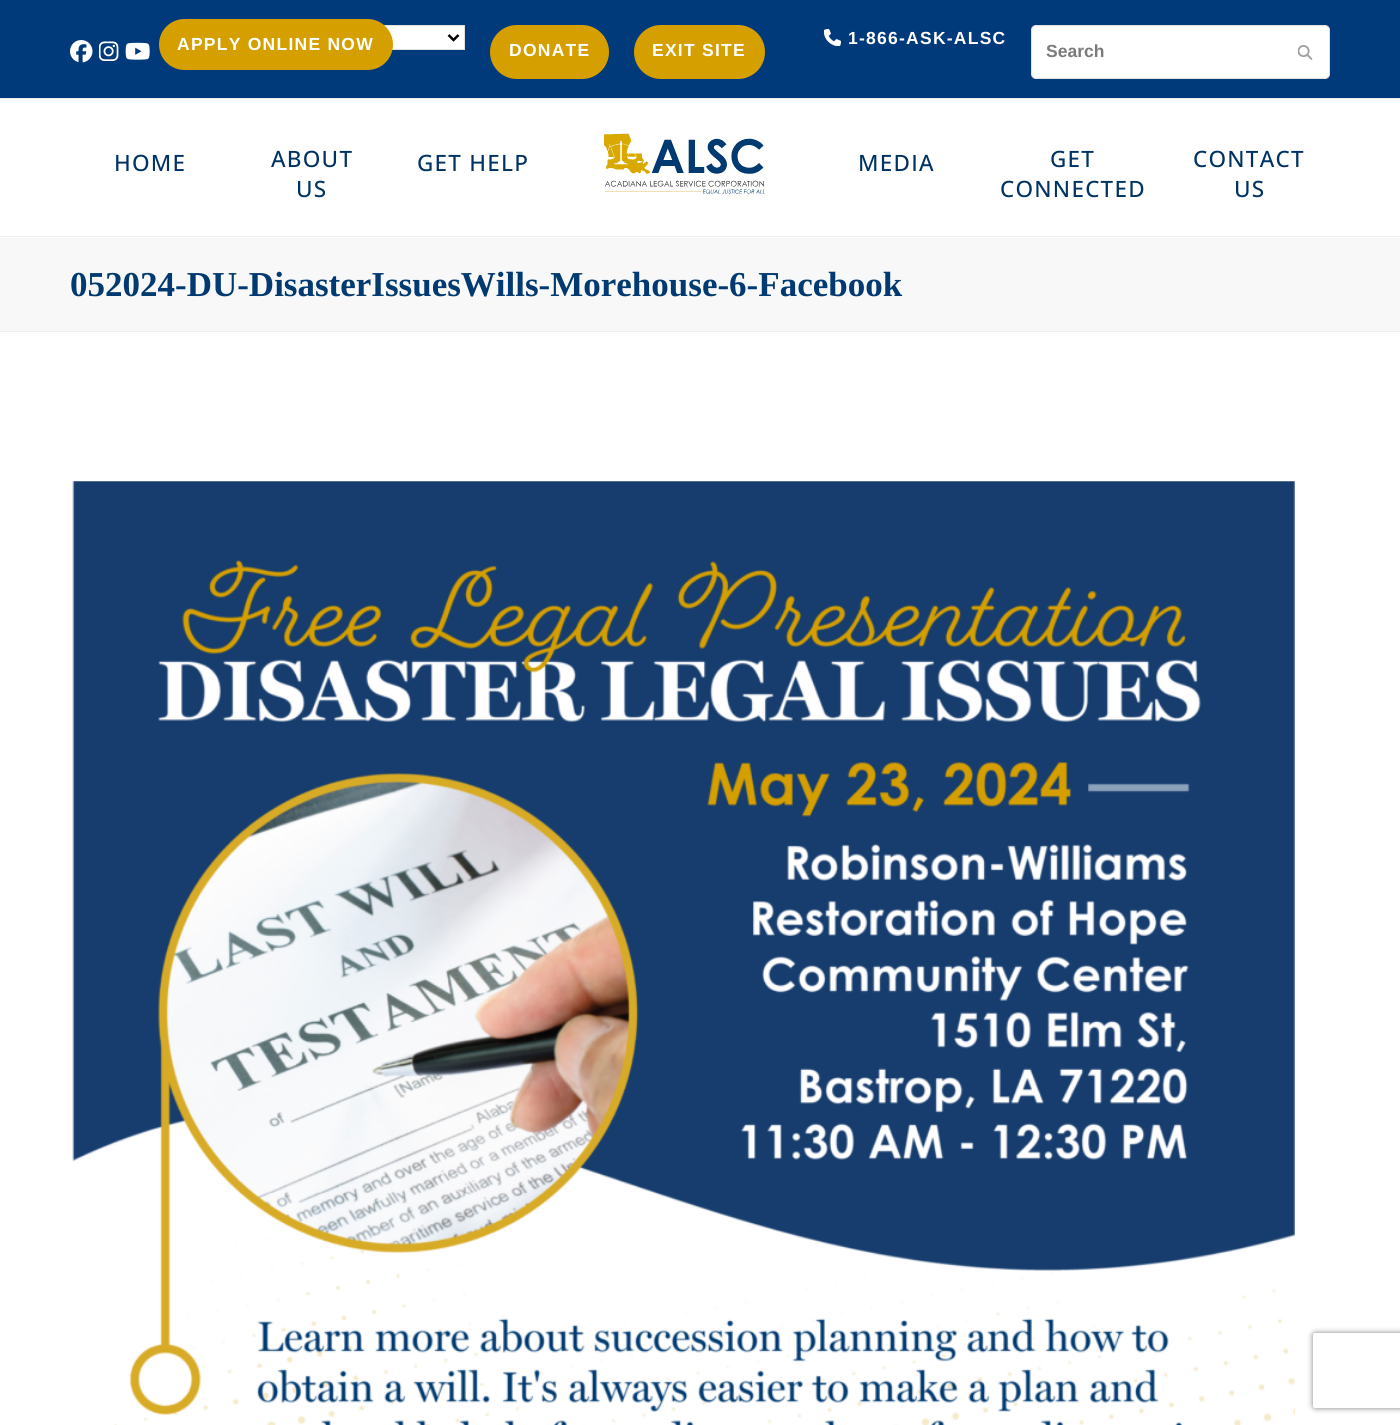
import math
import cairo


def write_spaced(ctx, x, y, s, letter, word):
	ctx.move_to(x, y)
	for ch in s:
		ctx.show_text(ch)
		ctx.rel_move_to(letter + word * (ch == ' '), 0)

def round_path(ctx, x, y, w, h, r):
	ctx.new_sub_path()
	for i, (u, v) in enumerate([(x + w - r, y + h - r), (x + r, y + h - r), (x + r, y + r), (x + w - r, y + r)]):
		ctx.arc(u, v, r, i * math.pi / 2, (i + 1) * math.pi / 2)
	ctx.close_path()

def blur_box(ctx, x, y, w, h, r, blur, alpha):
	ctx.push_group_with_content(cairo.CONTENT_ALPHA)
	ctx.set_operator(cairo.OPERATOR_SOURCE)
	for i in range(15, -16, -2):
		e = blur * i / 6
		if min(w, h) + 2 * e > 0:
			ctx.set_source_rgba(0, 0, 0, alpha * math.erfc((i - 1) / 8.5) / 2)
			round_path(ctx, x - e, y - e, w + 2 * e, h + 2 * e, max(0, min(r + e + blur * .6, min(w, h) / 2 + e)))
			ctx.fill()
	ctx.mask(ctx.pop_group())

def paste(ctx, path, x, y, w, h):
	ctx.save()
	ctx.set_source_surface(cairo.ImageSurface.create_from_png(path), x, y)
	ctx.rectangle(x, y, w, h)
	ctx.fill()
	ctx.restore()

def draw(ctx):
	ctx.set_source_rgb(1, 1, 1)
	ctx.paint()
	ctx.set_source_rgb(0, 0.227, 0.482)
	ctx.rectangle(0, 0, 1400, 98)
	ctx.fill()
	ctx.set_source_rgb(0.933, 0.933, 0.933)
	ctx.rectangle(0, 98, 1400, 1)
	ctx.fill()
	paste(ctx, 'media/1.png', 70, 40, 23, 23)
	paste(ctx, 'media/2.png', 99, 41, 20, 20)
	paste(ctx, 'media/3.png', 125, 42, 25, 18)
	ctx.set_source_rgb(1, 1, 1)
	ctx.rectangle(385, 26, 79, 23)
	ctx.fill()
	ctx.rectangle(269.5, 25.5, 195, 24)
	ctx.set_source_rgb(0.878, 0.878, 0.878)
	ctx.set_line_width(1)
	ctx.stroke()
	ctx.new_path()
	ctx.move_to(448.5, 35)
	ctx.line_to(453.5, 40)
	ctx.line_to(458.5, 35)
	ctx.set_source_rgb(0, 0, 0)
	ctx.set_line_width(2.5)
	ctx.stroke()
	paste(ctx, 'media/4.png', 824, 29, 17, 17)
	ctx.select_font_face('Liberation Sans', cairo.FONT_SLANT_NORMAL, cairo.FONT_WEIGHT_BOLD)
	ctx.set_font_size(17.5)
	ctx.set_source_rgb(1, 1, 1)
	write_spaced(ctx, 848, 44, '1-866-ASK-ALSC', 1.25, 0)
	ctx.set_source_rgb(0.835, 0.624, 0)
	round_path(ctx, 159, 19, 234, 51, 25.5)
	ctx.fill()
	ctx.set_source_rgb(1, 1, 1)
	write_spaced(ctx, 177, 50, 'APPLY ONLINE NOW', 1.25, 0)
	ctx.set_source_rgb(0.835, 0.624, 0)
	round_path(ctx, 490, 25, 119, 54, 27)
	ctx.fill()
	ctx.set_source_rgb(1, 1, 1)
	write_spaced(ctx, 509, 56, 'DONATE', 1.25, 0)
	ctx.set_source_rgb(0.835, 0.624, 0)
	round_path(ctx, 634, 25, 131, 54, 27)
	ctx.fill()
	ctx.set_source_rgb(1, 1, 1)
	write_spaced(ctx, 652, 56, 'EXIT SITE', 1.25, 0)
	round_path(ctx, 1031.5, 25.5, 298, 53, 4.5)
	ctx.fill_preserve()
	ctx.set_source_rgb(0.878, 0.878, 0.878)
	ctx.set_line_width(1)
	ctx.stroke()
	ctx.set_source_rgb(0.482, 0.482, 0.482)
	ctx.move_to(1046, 57)
	ctx.show_text('Search')
	paste(ctx, 'media/5.png', 1298, 45, 15, 15)
	ctx.select_font_face('Open Sans Medium')
	ctx.set_font_size(22.5)
	ctx.set_source_rgb(0, 0.2, 0.388)
	for x, y, s in [
		(114, 171, 'HOME'),
		(271, 167, 'ABOUT'),
		(296, 197, 'US'),
		(417, 171, 'GET HELP'),
	]:
		write_spaced(ctx, x, y, s, 1.25, 0)
	paste(ctx, 'media/6.png', 604, 133, 161, 61)
	for x, y, s in [
		(858, 171, 'MEDIA'),
		(1050, 167, 'GET'),
		(1000, 197, 'CONNECTED'),
		(1193, 167, 'CONTACT'),
		(1234, 197, 'US'),
	]:
		write_spaced(ctx, x, y, s, 1.25, 0)
	ctx.set_source_rgb(0.969, 0.969, 0.969)
	ctx.rectangle(0, 238, 1400, 93)
	ctx.fill()
	ctx.set_source_rgb(0.933, 0.933, 0.933)
	ctx.rectangle(0, 236, 1400, 1)
	ctx.rectangle(0, 331, 1400, 1)
	ctx.fill()
	ctx.select_font_face('Liberation Serif', cairo.FONT_SLANT_NORMAL, cairo.FONT_WEIGHT_BOLD)
	ctx.set_font_size(35)
	ctx.set_source_rgb(0, 0.227, 0.439)
	ctx.move_to(70, 296)
	ctx.show_text('052024-DU-DisasterIssuesWills-Morehouse-6-Facebook')
	paste(ctx, 'media/7.png', 72, 481, 1223, 944)
	ctx.save()
	ctx.set_fill_rule(cairo.FILL_RULE_EVEN_ODD)
	ctx.new_path()
	ctx.move_to(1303, 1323)
	ctx.line_to(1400, 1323)
	ctx.line_to(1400, 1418)
	ctx.line_to(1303, 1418)
	ctx.close_path()
	ctx.move_to(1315.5, 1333)
	ctx.line_to(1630.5, 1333)
	ctx.curve_to(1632, 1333, 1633, 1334, 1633, 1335.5)
	ctx.line_to(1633, 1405.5)
	ctx.curve_to(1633, 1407, 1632, 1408, 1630.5, 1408)
	ctx.line_to(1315.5, 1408)
	ctx.curve_to(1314, 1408, 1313, 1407, 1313, 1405.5)
	ctx.line_to(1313, 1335.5)
	ctx.curve_to(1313, 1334, 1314, 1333, 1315.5, 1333)
	ctx.close_path()
	ctx.clip()
	ctx.set_source_rgb(0.502, 0.502, 0.502)
	blur_box(ctx, 1313, 1333, 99, 75, 2.5, 3, 1)
	ctx.restore()


surface = cairo.ImageSurface(cairo.FORMAT_RGB24, 1400, 1425)
ctx = cairo.Context(surface)
options = cairo.FontOptions()
options.set_hint_metrics(cairo.HINT_METRICS_OFF)
options.set_hint_style(cairo.HINT_STYLE_NONE)
ctx.set_font_options(options)
ctx.set_miter_limit(4)
draw(ctx)
surface.write_to_png('image.png')
